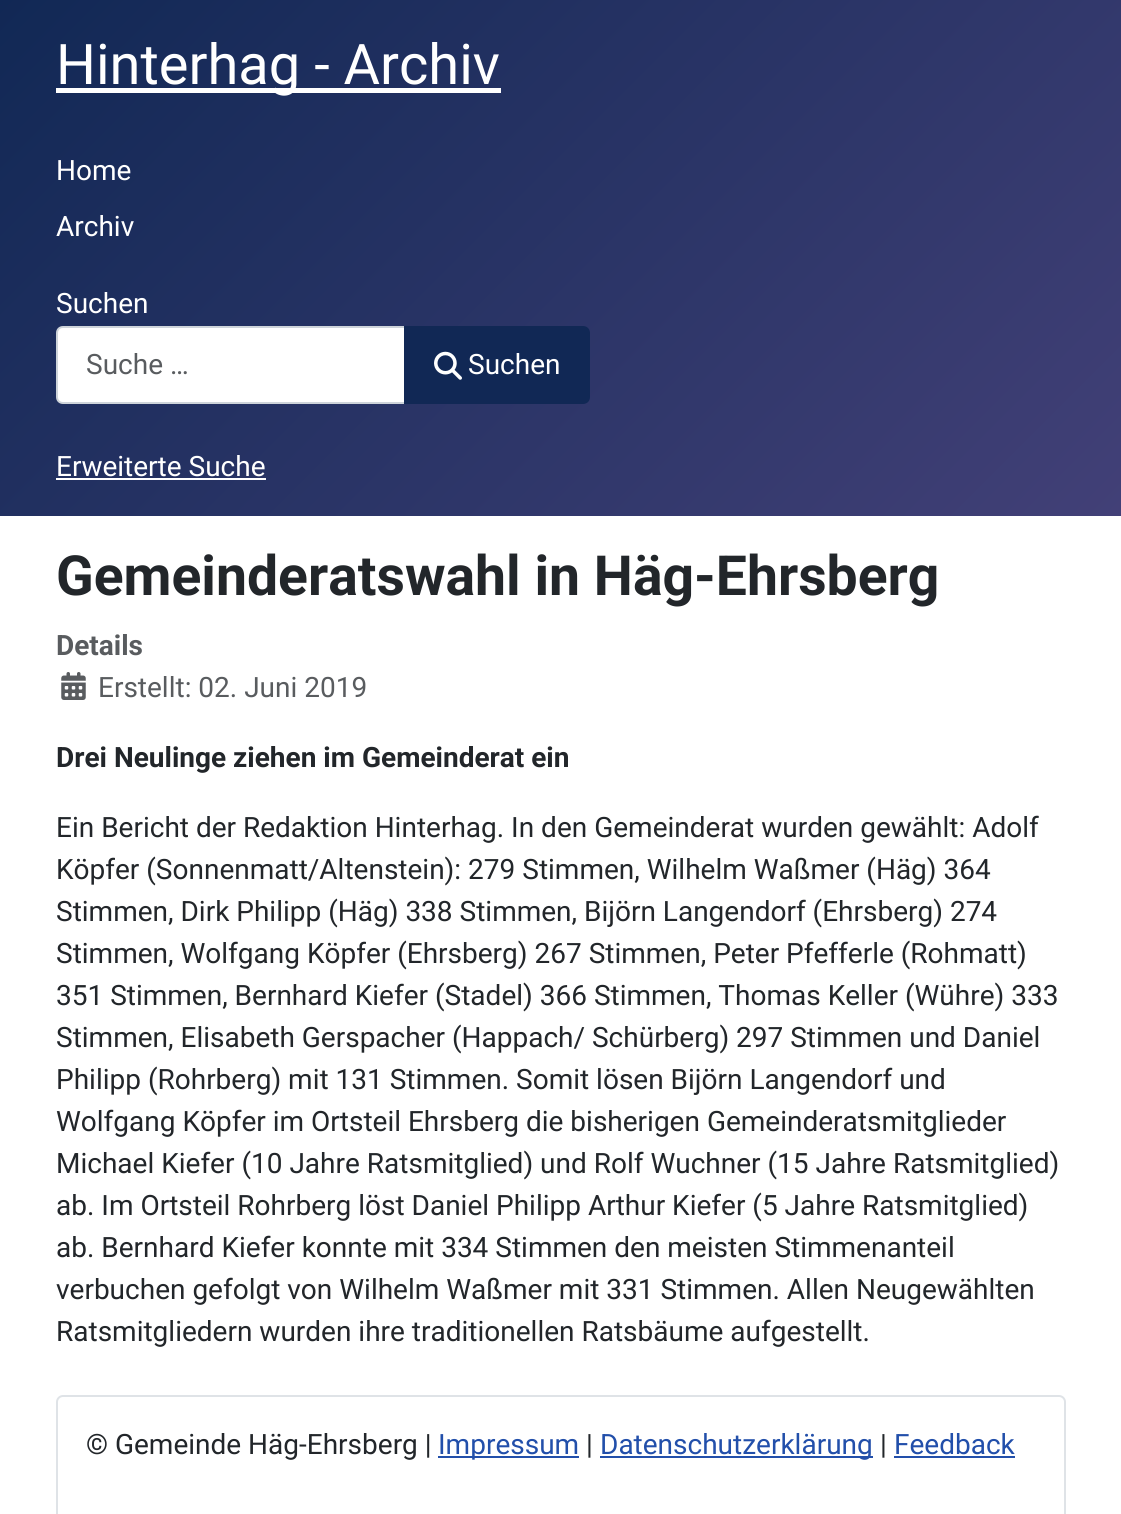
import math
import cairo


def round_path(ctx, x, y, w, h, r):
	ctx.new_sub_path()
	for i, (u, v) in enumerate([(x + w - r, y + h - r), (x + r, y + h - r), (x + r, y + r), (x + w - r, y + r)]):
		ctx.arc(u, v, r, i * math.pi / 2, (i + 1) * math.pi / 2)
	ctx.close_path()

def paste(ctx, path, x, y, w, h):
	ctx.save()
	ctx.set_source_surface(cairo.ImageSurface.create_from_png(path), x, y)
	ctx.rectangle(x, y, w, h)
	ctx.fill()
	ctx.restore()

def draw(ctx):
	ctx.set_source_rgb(1, 1, 1)
	ctx.paint()
	gradient = cairo.LinearGradient(151, -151, 970, 668)
	gradient.add_color_stop_rgba(0, 0.067, 0.157, 0.333, 1)
	gradient.add_color_stop_rgba(1, 0.259, 0.251, 0.467, 1)
	ctx.set_source(gradient)
	ctx.rectangle(0, 0, 1121, 516)
	ctx.fill()
	ctx.set_source_rgb(1, 1, 1)
	ctx.rectangle(56, 88, 445, 5)
	ctx.fill()
	ctx.select_font_face('Roboto')
	ctx.set_font_size(56)
	ctx.move_to(56, 84)
	ctx.show_text('Hinterhag - Archiv')
	ctx.set_font_size(28)
	for x, y, s in [
		(56, 180, 'Home'),
		(56, 236, 'Archiv'),
		(56, 313, 'Suchen'),
	]:
		ctx.move_to(x, y)
		ctx.show_text(s)
	ctx.new_path()
	ctx.move_to(63, 327)
	ctx.line_to(405, 327)
	ctx.line_to(405, 403)
	ctx.line_to(63, 403)
	ctx.curve_to(59.5, 403, 57, 400.5, 57, 397)
	ctx.line_to(57, 333)
	ctx.curve_to(57, 329.5, 59.5, 327, 63, 327)
	ctx.close_path()
	ctx.fill_preserve()
	ctx.set_source_rgb(0.808, 0.831, 0.855)
	ctx.stroke()
	ctx.set_source_rgb(0.349, 0.361, 0.373)
	ctx.move_to(86, 374)
	ctx.show_text('Suche …')
	ctx.set_source_rgb(0.067, 0.157, 0.333)
	ctx.new_path()
	ctx.move_to(405, 327)
	ctx.line_to(583, 327)
	ctx.curve_to(586.5, 327, 589, 329.5, 589, 333)
	ctx.line_to(589, 397)
	ctx.curve_to(589, 400.5, 586.5, 403, 583, 403)
	ctx.line_to(405, 403)
	ctx.close_path()
	ctx.fill_preserve()
	ctx.stroke()
	paste(ctx, 'media/1.png', 434, 351, 28, 29)
	ctx.set_source_rgb(1, 1, 1)
	ctx.move_to(468, 374)
	ctx.show_text('Suchen')
	ctx.move_to(56, 476)
	ctx.show_text('Erweiterte Suche')
	ctx.rectangle(56, 478, 210, 2)
	ctx.fill()
	ctx.select_font_face('Roboto', cairo.FONT_SLANT_NORMAL, cairo.FONT_WEIGHT_BOLD)
	ctx.set_font_size(55.3)
	ctx.set_source_rgb(0.133, 0.149, 0.165)
	ctx.move_to(56, 595)
	ctx.show_text('Gemeinderatswahl in Häg-Ehrsberg')
	ctx.set_font_size(28)
	ctx.set_source_rgb(0.349, 0.361, 0.373)
	ctx.move_to(56, 655)
	ctx.show_text('Details')
	paste(ctx, 'media/2.png', 61, 672, 25, 28)
	ctx.select_font_face('Roboto')
	ctx.move_to(98, 697)
	ctx.show_text('Erstellt: 02. Juni 2019')
	ctx.select_font_face('Roboto', cairo.FONT_SLANT_NORMAL, cairo.FONT_WEIGHT_BOLD)
	ctx.set_source_rgb(0.133, 0.149, 0.165)
	ctx.move_to(56, 767)
	ctx.show_text('Drei Neulinge ziehen im Gemeinderat ein')
	ctx.select_font_face('Roboto')
	for x, y, s in [
		(56, 837, 'Ein Bericht der Redaktion Hinterhag. In den Gemeinderat wurden gewählt: Adolf'),
		(56, 879, 'Köpfer (Sonnenmatt/Altenstein): 279 Stimmen, Wilhelm Waßmer (Häg) 364'),
		(56, 921, 'Stimmen, Dirk Philipp (Häg) 338 Stimmen, Bijörn Langendorf (Ehrsberg) 274'),
		(56, 963, 'Stimmen, Wolfgang Köpfer (Ehrsberg) 267 Stimmen, Peter Pfefferle (Rohmatt)'),
		(56, 1005, '351 Stimmen, Bernhard Kiefer (Stadel) 366 Stimmen, Thomas Keller (Wühre) 333'),
		(56, 1047, 'Stimmen, Elisabeth Gerspacher (Happach/ Schürberg) 297 Stimmen und Daniel'),
		(56, 1089, 'Philipp (Rohrberg) mit 131 Stimmen. Somit lösen Bijörn Langendorf und'),
		(56, 1131, 'Wolfgang Köpfer im Ortsteil Ehrsberg die bisherigen Gemeinderatsmitglieder'),
		(56, 1173, 'Michael Kiefer (10 Jahre Ratsmitglied) und Rolf Wuchner (15 Jahre Ratsmitglied)'),
		(56, 1215, 'ab. Im Ortsteil Rohrberg löst Daniel Philipp Arthur Kiefer (5 Jahre Ratsmitglied)'),
		(56, 1257, 'ab. Bernhard Kiefer konnte mit 334 Stimmen den meisten Stimmenanteil'),
		(56, 1299, 'verbuchen gefolgt von Wilhelm Waßmer mit 331 Stimmen. Allen Neugewählten'),
		(56, 1341, 'Ratsmitgliedern wurden ihre traditionellen Ratsbäume aufgestellt.'),
	]:
		ctx.move_to(x, y)
		ctx.show_text(s)
	round_path(ctx, 57, 1396, 1008, 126, 6)
	ctx.set_source_rgb(0.875, 0.89, 0.906)
	ctx.stroke()
	ctx.set_source_rgb(0.133, 0.149, 0.165)
	ctx.move_to(86, 1454)
	ctx.show_text('© Gemeinde Häg-Ehrsberg |')
	ctx.set_source_rgb(0.133, 0.31, 0.667)
	ctx.rectangle(438, 1456, 141, 2)
	ctx.fill()
	ctx.move_to(438, 1454)
	ctx.show_text('Impressum')
	ctx.set_source_rgb(0.133, 0.149, 0.165)
	ctx.move_to(586, 1454)
	ctx.show_text('|')
	ctx.set_source_rgb(0.133, 0.31, 0.667)
	ctx.rectangle(600, 1456, 273, 2)
	ctx.fill()
	ctx.move_to(600, 1454)
	ctx.show_text('Datenschutzerklärung')
	ctx.set_source_rgb(0.133, 0.149, 0.165)
	ctx.move_to(880, 1454)
	ctx.show_text('|')
	ctx.set_source_rgb(0.133, 0.31, 0.667)
	ctx.move_to(894, 1454)
	ctx.show_text('Feedback')
	ctx.rectangle(894, 1456, 121, 2)
	ctx.fill()


surface = cairo.ImageSurface(cairo.FORMAT_RGB24, 1121, 1514)
ctx = cairo.Context(surface)
options = cairo.FontOptions()
options.set_hint_metrics(cairo.HINT_METRICS_OFF)
options.set_hint_style(cairo.HINT_STYLE_NONE)
ctx.set_font_options(options)
ctx.set_miter_limit(4)
draw(ctx)
surface.write_to_png('image.png')
